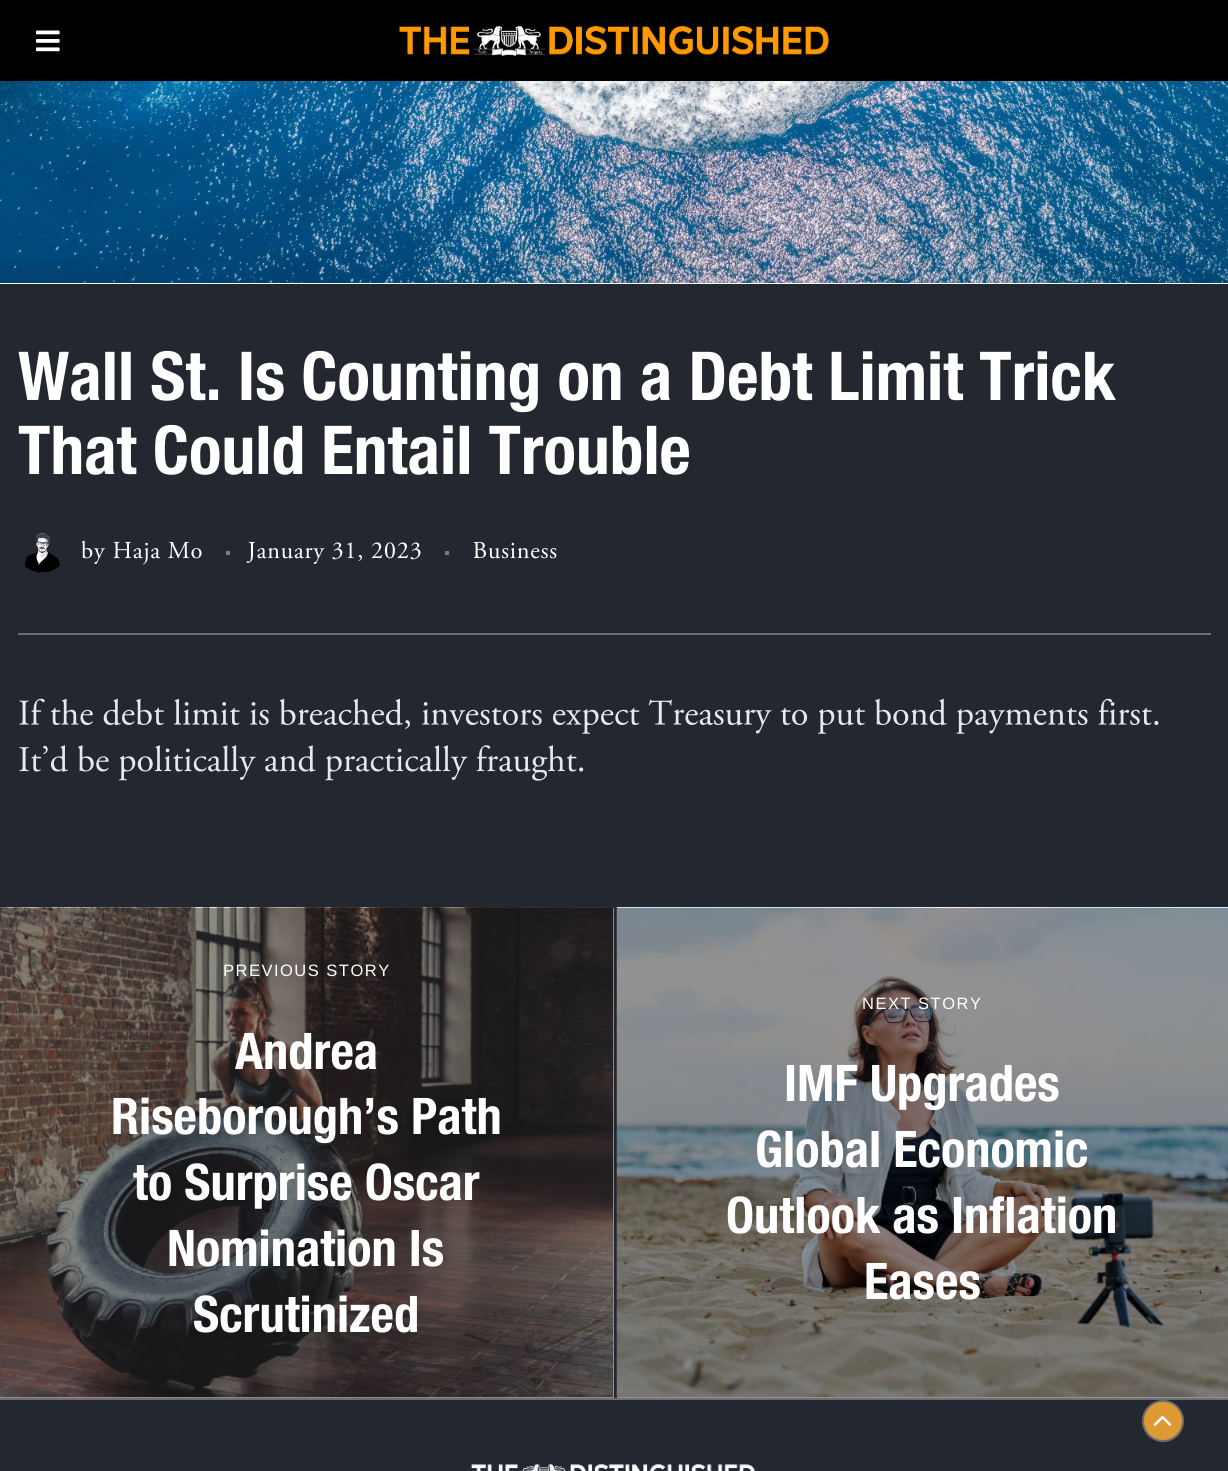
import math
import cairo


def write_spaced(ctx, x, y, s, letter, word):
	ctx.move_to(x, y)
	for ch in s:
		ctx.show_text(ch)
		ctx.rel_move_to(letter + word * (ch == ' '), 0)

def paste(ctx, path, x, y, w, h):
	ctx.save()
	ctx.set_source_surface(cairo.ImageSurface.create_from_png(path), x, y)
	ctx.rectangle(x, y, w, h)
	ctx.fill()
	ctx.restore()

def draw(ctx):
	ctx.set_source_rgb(0.137, 0.153, 0.184)
	ctx.paint()
	ctx.set_source_rgb(1, 1, 1)
	ctx.rectangle(0, 283, 1228, 1)
	ctx.fill()
	paste(ctx, 'media/1.png', 0, 81, 1228, 202)
	ctx.select_font_face('Helvetica Neue', cairo.FONT_SLANT_NORMAL, cairo.FONT_WEIGHT_BOLD)
	ctx.set_font_size(67.5)
	ctx.move_to(18, 400)
	ctx.show_text('Wall St. Is Counting on a Debt Limit Trick')
	ctx.move_to(18, 474)
	ctx.show_text('That Could Entail Trouble')
	ctx.set_source_rgb(0, 0, 0)
	ctx.rectangle(0, 0, 1228, 81)
	ctx.fill()
	paste(ctx, 'media/2.png', 36, 30, 24, 22)
	paste(ctx, 'media/3.png', 399, 25, 430, 32)
	ctx.set_source_rgb(0.427, 0.427, 0.427)
	ctx.rectangle(18, 633, 1193, 2)
	ctx.fill()
	paste(ctx, 'media/4.png', 24, 532, 36, 41)
	paste(ctx, 'media/5.png', 81, 540, 24, 24)
	paste(ctx, 'media/6.png', 113, 541, 89, 24)
	ctx.set_source_rgb(0.482, 0.49, 0.51)
	ctx.rectangle(226, 551, 4, 4)
	ctx.fill()
	paste(ctx, 'media/7.png', 246, 541, 175, 23)
	ctx.rectangle(445, 551, 4, 4)
	ctx.fill()
	paste(ctx, 'media/8.png', 473, 541, 84, 18)
	paste(ctx, 'media/9.png', 19, 698, 1140, 36)
	paste(ctx, 'media/10.png', 19, 745, 565, 36)
	ctx.set_source_rgb(0.6, 0.6, 0.6)
	ctx.rectangle(0, 908, 614, 490)
	ctx.fill()
	paste(ctx, 'media/11.png', 0, 907, 614, 491)
	ctx.select_font_face('Liberation Sans')
	ctx.set_font_size(16.5)
	ctx.set_source_rgb(1, 1, 1)
	write_spaced(ctx, 223, 976, 'PREVIOUS STORY', 1.5, 0)
	ctx.select_font_face('Helvetica Neue', cairo.FONT_SLANT_NORMAL, cairo.FONT_WEIGHT_BOLD)
	ctx.set_font_size(50.5)
	for x, y, s in [
		(235, 1069, 'Andrea'),
		(111, 1134, 'Riseborough’s Path'),
		(133, 1200, 'to Surprise Oscar'),
		(167, 1266, 'Nomination Is'),
		(193, 1332, 'Scrutinized'),
	]:
		ctx.move_to(x, y)
		ctx.show_text(s)
	ctx.set_source_rgb(0.6, 0.6, 0.6)
	ctx.rectangle(617, 1397, 611, 1)
	ctx.fill()
	paste(ctx, 'media/12.png', 616, 907, 612, 491)
	ctx.select_font_face('Liberation Sans')
	ctx.set_font_size(16.5)
	ctx.set_source_rgb(1, 1, 1)
	write_spaced(ctx, 862, 1009, 'NEXT STORY', 1.5, 0)
	ctx.select_font_face('Helvetica Neue', cairo.FONT_SLANT_NORMAL, cairo.FONT_WEIGHT_BOLD)
	ctx.set_font_size(50.5)
	for x, y, s in [
		(784, 1101, 'IMF Upgrades'),
		(755, 1167, 'Global Economic'),
		(726, 1233, 'Outlook as Inflation'),
		(864, 1299, 'Eases'),
	]:
		ctx.move_to(x, y)
		ctx.show_text(s)
	ctx.set_source_rgb(0.427, 0.427, 0.427)
	ctx.rectangle(0, 1398, 1228, 2)
	ctx.fill()
	paste(ctx, 'media/13.png', 471, 1464, 285, 7)
	ctx.set_source_rgb(0.867, 0.6, 0.2)
	ctx.arc(1163, 1421, 20, 0, 2 * math.pi)
	ctx.fill_preserve()
	ctx.set_source_rgb(0.427, 0.427, 0.427)
	ctx.stroke()
	paste(ctx, 'media/14.png', 1153, 1415, 19, 11)


surface = cairo.ImageSurface(cairo.FORMAT_RGB24, 1228, 1471)
ctx = cairo.Context(surface)
options = cairo.FontOptions()
options.set_hint_metrics(cairo.HINT_METRICS_OFF)
options.set_hint_style(cairo.HINT_STYLE_NONE)
ctx.set_font_options(options)
ctx.set_miter_limit(4)
draw(ctx)
surface.write_to_png('image.png')
